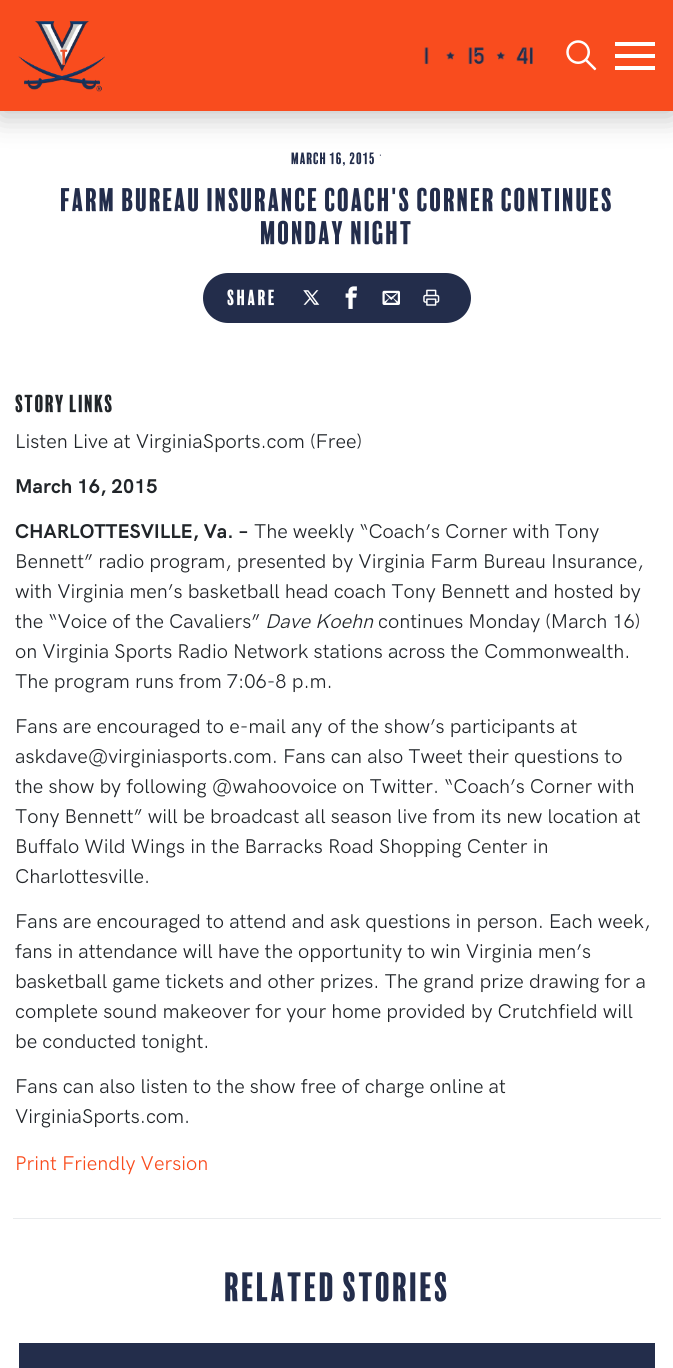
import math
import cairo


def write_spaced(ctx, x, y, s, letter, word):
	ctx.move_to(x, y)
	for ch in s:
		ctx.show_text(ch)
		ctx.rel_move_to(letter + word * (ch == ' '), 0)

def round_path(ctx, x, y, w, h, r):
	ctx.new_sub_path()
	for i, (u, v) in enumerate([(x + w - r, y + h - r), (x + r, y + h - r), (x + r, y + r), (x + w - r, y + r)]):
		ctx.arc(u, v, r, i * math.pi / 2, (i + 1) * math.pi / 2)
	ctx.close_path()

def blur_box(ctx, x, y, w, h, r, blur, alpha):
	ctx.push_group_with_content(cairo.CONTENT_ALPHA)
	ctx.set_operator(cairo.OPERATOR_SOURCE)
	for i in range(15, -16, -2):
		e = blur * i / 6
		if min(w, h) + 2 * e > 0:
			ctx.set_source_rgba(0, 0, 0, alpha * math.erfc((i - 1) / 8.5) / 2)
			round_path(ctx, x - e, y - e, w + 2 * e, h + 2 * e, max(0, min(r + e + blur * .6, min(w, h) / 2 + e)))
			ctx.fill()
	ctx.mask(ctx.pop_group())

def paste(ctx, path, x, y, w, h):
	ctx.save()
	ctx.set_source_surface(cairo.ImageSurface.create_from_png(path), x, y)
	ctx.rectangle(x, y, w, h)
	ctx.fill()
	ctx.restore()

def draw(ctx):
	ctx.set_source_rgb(1, 1, 1)
	ctx.paint()
	ctx.set_source_rgb(0, 0, 0)
	blur_box(ctx, 0, 5, 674, 111, 0, 15, 0.25)
	ctx.set_source_rgb(0.973, 0.298, 0.118)
	ctx.rectangle(0, 0, 673, 111)
	ctx.fill()
	paste(ctx, 'media/1.png', 18, 21, 87, 71)
	paste(ctx, 'media/2.png', 424, 47, 109, 18)
	paste(ctx, 'media/3.png', 566, 40, 31, 31)
	ctx.set_source_rgb(1, 1, 1)
	ctx.new_path()
	ctx.move_to(615, 42)
	ctx.line_to(655, 42)
	ctx.line_to(655, 46)
	ctx.line_to(615, 46)
	ctx.close_path()
	ctx.move_to(615, 54)
	ctx.line_to(655, 54)
	ctx.line_to(655, 58)
	ctx.line_to(615, 58)
	ctx.close_path()
	ctx.move_to(615, 66)
	ctx.line_to(655, 66)
	ctx.line_to(655, 70)
	ctx.line_to(615, 70)
	ctx.close_path()
	ctx.fill()
	ctx.select_font_face('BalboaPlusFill')
	ctx.set_font_size(20)
	ctx.set_source_rgb(0.922, 0.318, 0.165)
	ctx.move_to(60, 65)
	ctx.show_text('t')
	ctx.set_font_size(15)
	ctx.set_source_rgb(0.137, 0.176, 0.294)
	ctx.move_to(291, 164)
	ctx.show_text('March 16, 2015')
	ctx.select_font_face('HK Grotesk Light')
	ctx.move_to(378, 156)
	ctx.show_text('.')
	ctx.select_font_face('BalboaPlusFill')
	ctx.set_font_size(30)
	ctx.move_to(60, 211)
	ctx.show_text('Farm Bureau Insurance Coach\'s Corner Continues')
	ctx.move_to(260, 244)
	ctx.show_text('Monday Night')
	round_path(ctx, 203, 273, 268, 50, 25)
	ctx.fill()
	ctx.set_font_size(20)
	ctx.set_source_rgb(1, 1, 1)
	write_spaced(ctx, 227, 305, 'SHARE', 1.25, 0)
	paste(ctx, 'media/4.png', 303, 290, 17, 15)
	paste(ctx, 'media/5.png', 345, 286, 12, 23)
	paste(ctx, 'media/6.png', 382, 290, 18, 15)
	paste(ctx, 'media/7.png', 423, 289, 17, 17)
	ctx.set_font_size(22.5)
	ctx.set_source_rgb(0.129, 0.145, 0.161)
	ctx.move_to(15, 412)
	ctx.show_text('Story Links')
	ctx.select_font_face('HK Grotesk')
	ctx.set_font_size(20)
	ctx.move_to(15, 448)
	ctx.show_text('Listen Live at VirginiaSports.com (Free)')
	ctx.select_font_face('HK Grotesk', cairo.FONT_SLANT_NORMAL, cairo.FONT_WEIGHT_BOLD)
	ctx.move_to(15, 493)
	ctx.show_text('March 16, 2015')
	ctx.move_to(15, 538)
	ctx.show_text('CHARLOTTESVILLE, Va. –')
	ctx.select_font_face('HK Grotesk')
	for x, y, s in [
		(254, 538, 'The weekly “Coach’s Corner with Tony'),
		(15, 568, 'Bennett” radio program, presented by Virginia Farm Bureau Insurance,'),
		(15, 598, 'with Virginia men’s basketball head coach Tony Bennett and hosted by'),
		(15, 628, 'the “Voice of the Cavaliers”'),
	]:
		ctx.move_to(x, y)
		ctx.show_text(s)
	ctx.select_font_face('HK Grotesk', cairo.FONT_SLANT_ITALIC)
	ctx.move_to(265, 628)
	ctx.show_text('Dave Koehn')
	ctx.select_font_face('HK Grotesk')
	for x, y, s in [
		(378, 628, 'continues Monday (March 16)'),
		(15, 658, 'on Virginia Sports Radio Network stations across the Commonwealth.'),
		(15, 688, 'The program runs from 7:06-8 p.m.'),
		(15, 733, 'Fans are encouraged to e-mail any of the show’s participants at'),
		(15, 763, 'askdave@virginiasports.com. Fans can also Tweet their questions to'),
		(15, 793, 'the show by following @wahoovoice on Twitter. “Coach’s Corner with'),
		(15, 823, 'Tony Bennett” will be broadcast all season live from its new location at'),
		(15, 853, 'Buffalo Wild Wings in the Barracks Road Shopping Center in'),
		(15, 883, 'Charlottesville.'),
		(15, 928, 'Fans are encouraged to attend and ask questions in person. Each week,'),
		(15, 958, 'fans in attendance will have the opportunity to win Virginia men’s'),
		(15, 988, 'basketball game tickets and other prizes. The grand prize drawing for a'),
		(15, 1018, 'complete sound makeover for your home provided by Crutchfield will'),
		(15, 1048, 'be conducted tonight.'),
		(15, 1093, 'Fans can also listen to the show free of charge online at'),
		(15, 1123, 'VirginiaSports.com.'),
	]:
		ctx.move_to(x, y)
		ctx.show_text(s)
	ctx.set_source_rgb(0.973, 0.298, 0.118)
	ctx.move_to(15, 1170)
	ctx.show_text('Print Friendly Version')
	ctx.set_source_rgb(0.914, 0.918, 0.929)
	ctx.rectangle(13, 1218, 648, 1)
	ctx.fill()
	ctx.select_font_face('BalboaPlusFill')
	ctx.set_font_size(37.5)
	ctx.set_source_rgb(0.137, 0.176, 0.294)
	ctx.move_to(224, 1301)
	ctx.show_text('Related Stories')
	ctx.rectangle(19, 1343, 636, 25)
	ctx.fill()


surface = cairo.ImageSurface(cairo.FORMAT_RGB24, 673, 1368)
ctx = cairo.Context(surface)
options = cairo.FontOptions()
options.set_hint_metrics(cairo.HINT_METRICS_OFF)
options.set_hint_style(cairo.HINT_STYLE_NONE)
ctx.set_font_options(options)
ctx.set_miter_limit(4)
draw(ctx)
surface.write_to_png('image.png')
